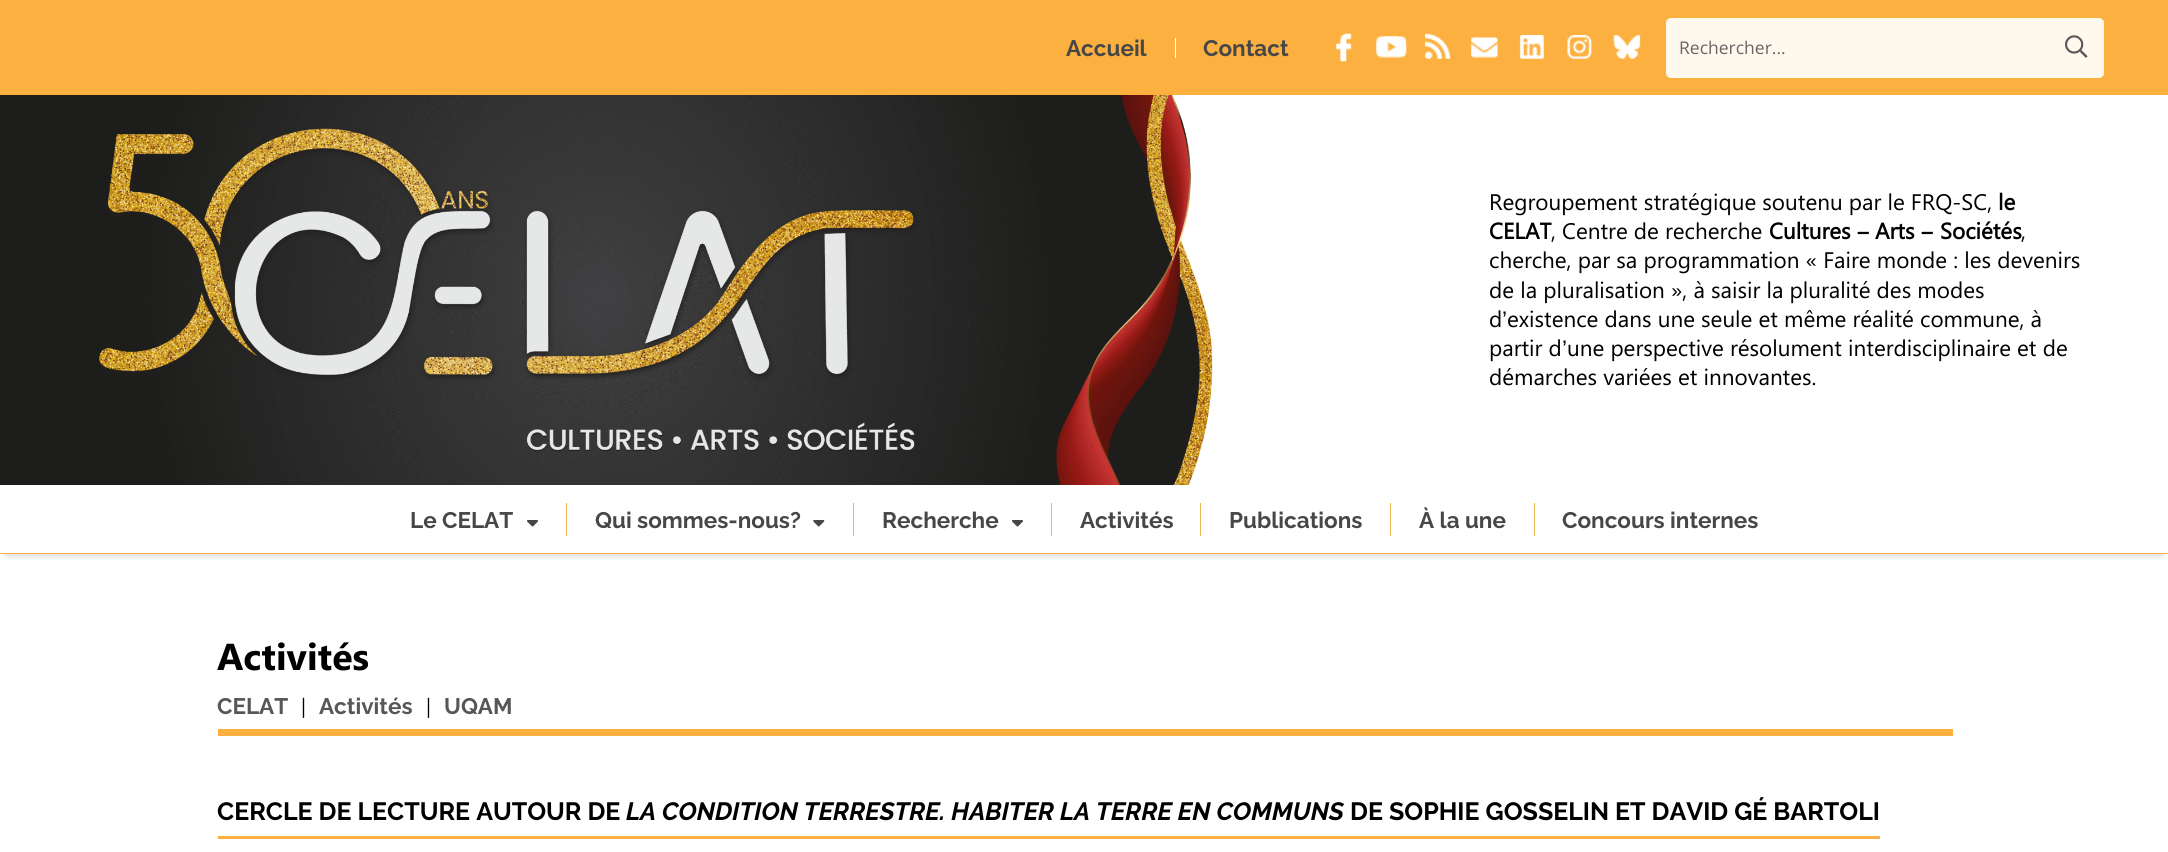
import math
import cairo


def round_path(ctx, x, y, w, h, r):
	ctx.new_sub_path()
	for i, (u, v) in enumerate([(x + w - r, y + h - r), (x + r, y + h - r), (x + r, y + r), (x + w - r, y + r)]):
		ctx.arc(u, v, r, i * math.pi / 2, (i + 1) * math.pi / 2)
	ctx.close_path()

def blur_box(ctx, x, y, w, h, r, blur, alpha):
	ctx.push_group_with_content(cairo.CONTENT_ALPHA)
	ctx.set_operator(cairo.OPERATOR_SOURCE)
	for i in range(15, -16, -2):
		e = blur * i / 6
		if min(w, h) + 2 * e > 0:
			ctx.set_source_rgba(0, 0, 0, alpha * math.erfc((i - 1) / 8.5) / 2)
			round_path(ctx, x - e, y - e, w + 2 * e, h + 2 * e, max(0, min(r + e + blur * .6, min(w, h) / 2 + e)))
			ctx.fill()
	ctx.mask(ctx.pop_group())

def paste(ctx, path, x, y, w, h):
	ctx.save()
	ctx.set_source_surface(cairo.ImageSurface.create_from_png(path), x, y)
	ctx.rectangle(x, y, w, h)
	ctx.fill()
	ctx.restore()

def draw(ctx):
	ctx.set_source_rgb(1, 1, 1)
	ctx.paint()
	ctx.set_source_rgb(0.988, 0.69, 0.251)
	ctx.rectangle(0, 0, 2168, 95)
	ctx.fill()
	ctx.select_font_face('Raleway Thin')
	ctx.set_font_size(22.5)
	ctx.set_source_rgb(0.278, 0.278, 0.278)
	ctx.move_to(1066, 56)
	ctx.show_text('Accueil')
	ctx.set_source_rgb(1, 1, 1)
	ctx.rectangle(1175, 38, 1, 20)
	ctx.fill()
	ctx.set_source_rgb(0.278, 0.278, 0.278)
	ctx.move_to(1203, 56)
	ctx.show_text('Contact')
	paste(ctx, 'media/1.png', 1336, 33, 16, 29)
	paste(ctx, 'media/2.png', 1376, 36, 31, 22)
	paste(ctx, 'media/3.png', 1425, 33, 26, 26)
	paste(ctx, 'media/4.png', 1471, 37, 27, 21)
	paste(ctx, 'media/5.png', 1519, 35, 25, 24)
	paste(ctx, 'media/6.png', 1567, 35, 25, 24)
	paste(ctx, 'media/7.png', 1613, 35, 28, 24)
	ctx.set_source_rgb(1, 0.969, 0.925)
	round_path(ctx, 1666, 18, 438, 60, 5)
	ctx.fill()
	ctx.select_font_face('Open Sans')
	ctx.set_font_size(17.5)
	ctx.set_source_rgb(0.4, 0.4, 0.4)
	ctx.move_to(1679, 54)
	ctx.show_text('Rechercher...')
	paste(ctx, 'media/8.png', 2065, 35, 23, 23)
	paste(ctx, 'media/9.png', 0, 95, 1213, 390)
	ctx.select_font_face('Segoe UI')
	ctx.set_font_size(22.5)
	ctx.set_source_rgb(0, 0, 0)
	ctx.move_to(1489, 210)
	ctx.show_text('Regroupement stratégique soutenu par le FRQ-SC,')
	ctx.select_font_face('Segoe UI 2', cairo.FONT_SLANT_NORMAL, cairo.FONT_WEIGHT_BOLD)
	ctx.move_to(1998, 210)
	ctx.show_text('le')
	ctx.move_to(1489, 239)
	ctx.show_text('CELAT')
	ctx.select_font_face('Segoe UI')
	ctx.move_to(1551, 239)
	ctx.show_text(', Centre de recherche')
	ctx.select_font_face('Segoe UI 2', cairo.FONT_SLANT_NORMAL, cairo.FONT_WEIGHT_BOLD)
	ctx.move_to(1769, 239)
	ctx.show_text('Cultures')
	ctx.select_font_face('Liberation Sans', cairo.FONT_SLANT_NORMAL, cairo.FONT_WEIGHT_BOLD)
	ctx.move_to(1857, 239)
	ctx.show_text('–')
	ctx.select_font_face('Segoe UI 2', cairo.FONT_SLANT_NORMAL, cairo.FONT_WEIGHT_BOLD)
	ctx.move_to(1875, 239)
	ctx.show_text('Arts')
	ctx.select_font_face('Liberation Sans', cairo.FONT_SLANT_NORMAL, cairo.FONT_WEIGHT_BOLD)
	ctx.move_to(1921, 239)
	ctx.show_text('–')
	ctx.select_font_face('Segoe UI 2', cairo.FONT_SLANT_NORMAL, cairo.FONT_WEIGHT_BOLD)
	ctx.move_to(1940, 239)
	ctx.show_text('Sociétés')
	ctx.select_font_face('Segoe UI')
	for x, y, s in [
		(2021, 239, ','),
		(1489, 268, 'cherche, par sa programmation « Faire monde : les devenirs'),
		(1489, 298, 'de la pluralisation », à saisir la pluralité des modes'),
		(1489, 327, 'd'),
	]:
		ctx.move_to(x, y)
		ctx.show_text(s)
	ctx.select_font_face('Liberation Sans')
	ctx.move_to(1502, 327)
	ctx.show_text('’')
	ctx.select_font_face('Segoe UI')
	ctx.move_to(1507, 327)
	ctx.show_text('existence dans une seule et même réalité commune, à')
	ctx.move_to(1489, 356)
	ctx.show_text('partir d')
	ctx.select_font_face('Liberation Sans')
	ctx.move_to(1562, 356)
	ctx.show_text('’')
	ctx.select_font_face('Segoe UI')
	ctx.move_to(1567, 356)
	ctx.show_text('une perspective résolument interdisciplinaire et de')
	ctx.move_to(1489, 385)
	ctx.show_text('démarches variées et innovantes.')
	ctx.save()
	ctx.rectangle(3, 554, 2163, 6)
	ctx.clip()
	ctx.set_source_rgb(0, 0, 0)
	blur_box(ctx, 8, 499, 2153, 54, 0, 5, 0.3)
	ctx.restore()
	ctx.set_source_rgb(0.988, 0.69, 0.251)
	ctx.rectangle(0, 553, 2168, 1)
	ctx.fill()
	ctx.select_font_face('Raleway Thin')
	ctx.set_source_rgb(0.278, 0.278, 0.278)
	ctx.move_to(410, 528)
	ctx.show_text('Le CELAT')
	paste(ctx, 'media/10.png', 527, 520, 11, 7)
	ctx.set_source_rgb(0.937, 0.702, 0.341)
	ctx.rectangle(566, 503, 1, 33)
	ctx.fill()
	ctx.set_source_rgb(0.278, 0.278, 0.278)
	ctx.move_to(595, 528)
	ctx.show_text('Qui sommes-nous?')
	paste(ctx, 'media/11.png', 813, 520, 12, 7)
	ctx.set_source_rgb(0.937, 0.702, 0.341)
	ctx.rectangle(853, 503, 1, 33)
	ctx.fill()
	ctx.set_source_rgb(0.278, 0.278, 0.278)
	ctx.move_to(882, 528)
	ctx.show_text('Recherche')
	paste(ctx, 'media/10.png', 1012, 520, 11, 7)
	ctx.set_source_rgb(0.937, 0.702, 0.341)
	ctx.rectangle(1051, 503, 1, 33)
	ctx.fill()
	ctx.set_source_rgb(0.278, 0.278, 0.278)
	ctx.move_to(1080, 528)
	ctx.show_text('Activités')
	ctx.set_source_rgb(0.937, 0.702, 0.341)
	ctx.rectangle(1200, 503, 1, 33)
	ctx.fill()
	ctx.set_source_rgb(0.278, 0.278, 0.278)
	ctx.move_to(1229, 528)
	ctx.show_text('Publications')
	ctx.set_source_rgb(0.937, 0.702, 0.341)
	ctx.rectangle(1390, 503, 1, 33)
	ctx.fill()
	ctx.set_source_rgb(0.278, 0.278, 0.278)
	ctx.move_to(1419, 528)
	ctx.show_text('À la une')
	ctx.set_source_rgb(0.937, 0.702, 0.341)
	ctx.rectangle(1534, 503, 1, 33)
	ctx.fill()
	ctx.set_source_rgb(0.278, 0.278, 0.278)
	ctx.move_to(1562, 528)
	ctx.show_text('Concours internes')
	ctx.set_source_rgb(0.988, 0.69, 0.251)
	ctx.rectangle(218, 729, 1735, 7)
	ctx.fill()
	ctx.select_font_face('Segoe UI', cairo.FONT_SLANT_NORMAL, cairo.FONT_WEIGHT_BOLD)
	ctx.set_font_size(37.5)
	ctx.set_source_rgb(0, 0, 0)
	ctx.move_to(217, 670)
	ctx.show_text('Activités')
	ctx.select_font_face('Raleway Thin')
	ctx.set_font_size(22.5)
	ctx.set_source_rgb(0.341, 0.341, 0.341)
	ctx.move_to(217, 714)
	ctx.show_text('CELAT')
	ctx.select_font_face('Open Sans')
	ctx.set_font_size(20)
	ctx.set_source_rgb(0, 0, 0)
	ctx.move_to(298, 713)
	ctx.show_text('|')
	ctx.select_font_face('Raleway Thin')
	ctx.set_font_size(22.5)
	ctx.set_source_rgb(0.341, 0.341, 0.341)
	ctx.move_to(319, 714)
	ctx.show_text('Activités')
	ctx.select_font_face('Open Sans')
	ctx.set_font_size(20)
	ctx.set_source_rgb(0, 0, 0)
	ctx.move_to(423, 713)
	ctx.show_text('|')
	ctx.select_font_face('Raleway Thin')
	ctx.set_font_size(22.5)
	ctx.set_source_rgb(0.341, 0.341, 0.341)
	ctx.move_to(444, 714)
	ctx.show_text('UQAM')
	ctx.set_source_rgb(0.988, 0.69, 0.251)
	ctx.rectangle(218, 836, 1662, 3)
	ctx.fill()
	ctx.set_font_size(25)
	ctx.set_source_rgb(0, 0, 0)
	ctx.move_to(217, 820)
	ctx.show_text('CERCLE DE LECTURE AUTOUR DE')
	ctx.select_font_face('Raleway Thin', cairo.FONT_SLANT_ITALIC)
	ctx.move_to(626, 820)
	ctx.show_text('LA CONDITION TERRESTRE. HABITER LA TERRE EN COMMUNS')
	ctx.select_font_face('Raleway Thin')
	ctx.move_to(1350, 820)
	ctx.show_text('DE SOPHIE GOSSELIN ET DAVID GÉ BARTOLI')


surface = cairo.ImageSurface(cairo.FORMAT_RGB24, 2168, 852)
ctx = cairo.Context(surface)
options = cairo.FontOptions()
options.set_hint_metrics(cairo.HINT_METRICS_OFF)
options.set_hint_style(cairo.HINT_STYLE_NONE)
ctx.set_font_options(options)
ctx.set_miter_limit(4)
draw(ctx)
surface.write_to_png('image.png')
